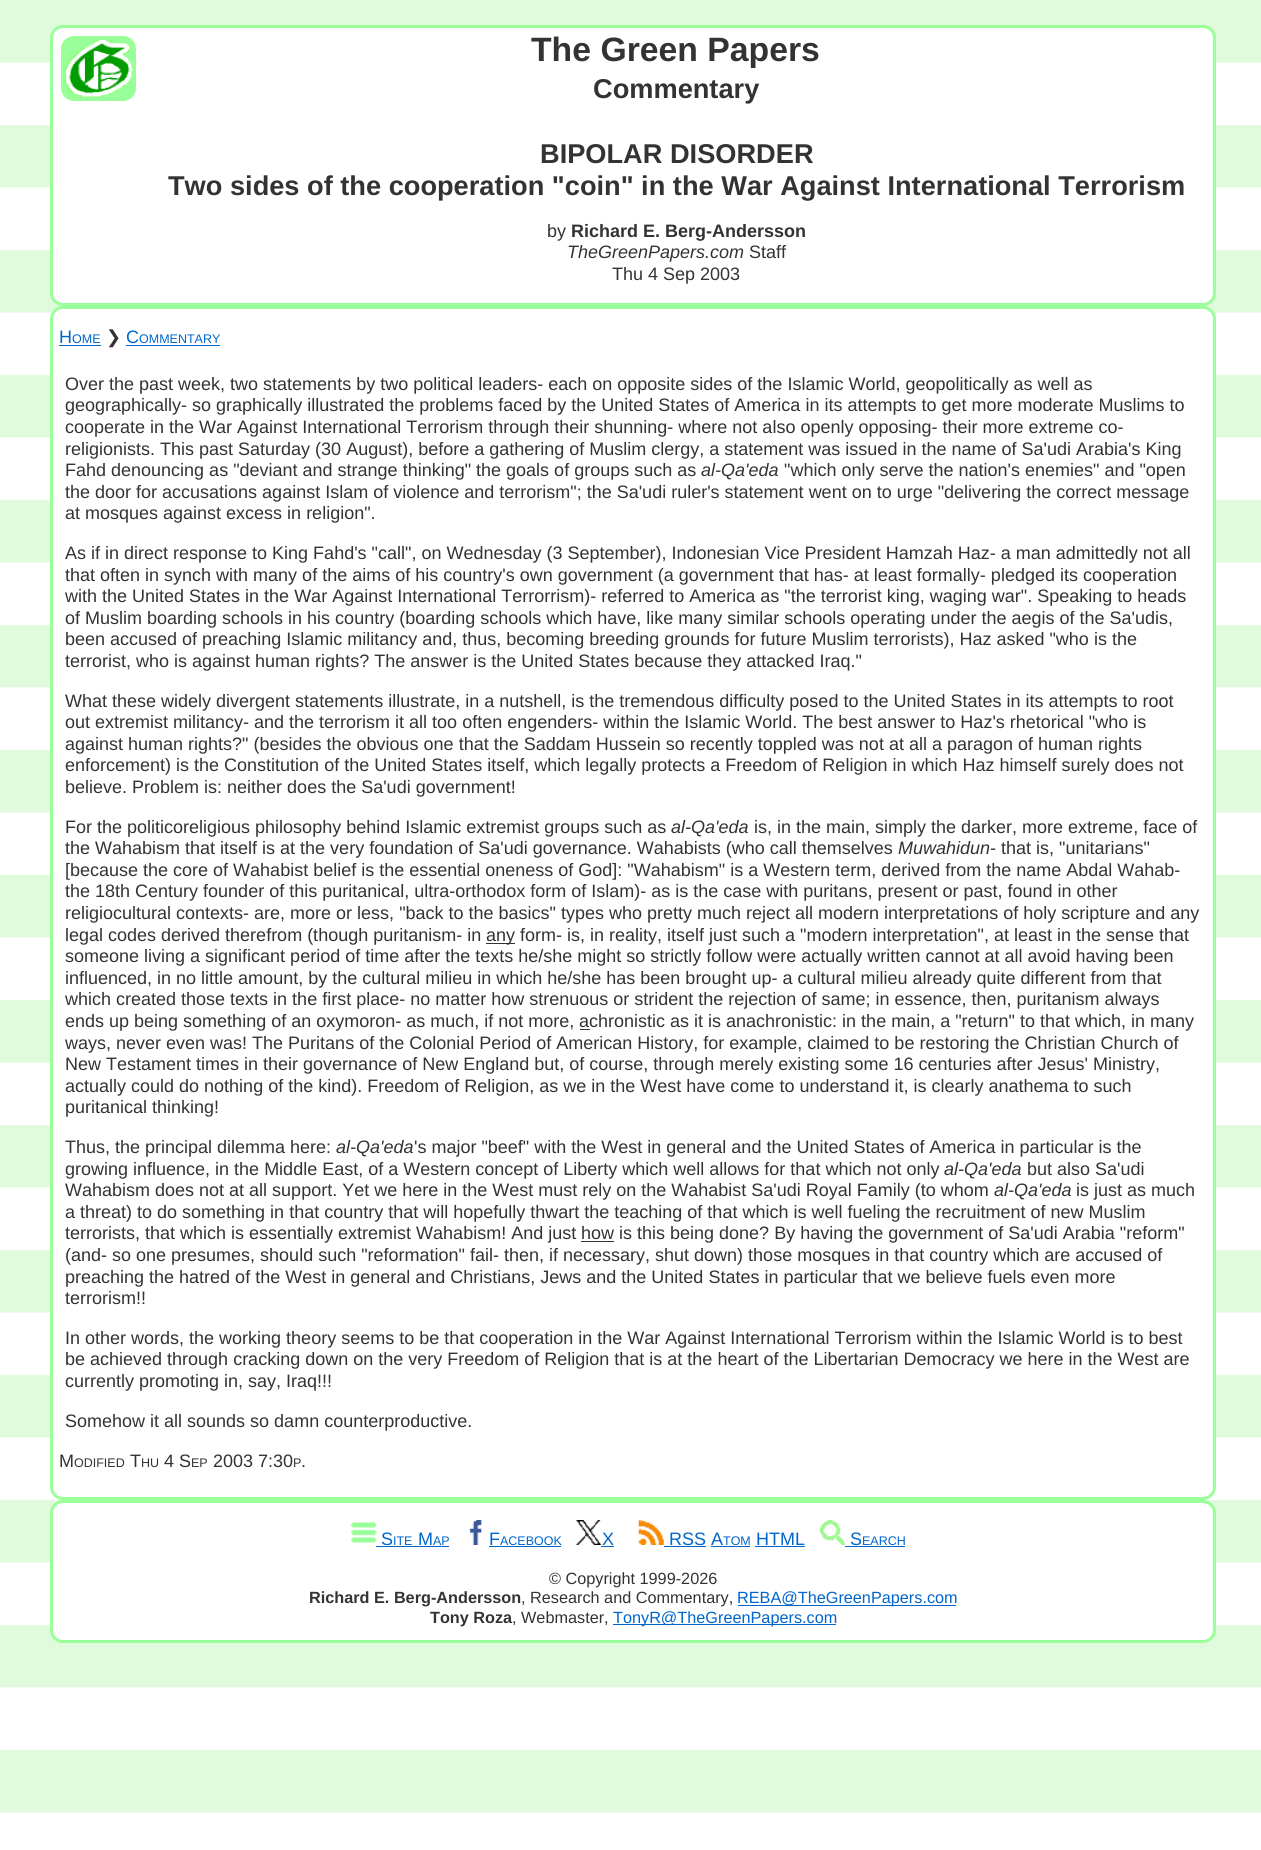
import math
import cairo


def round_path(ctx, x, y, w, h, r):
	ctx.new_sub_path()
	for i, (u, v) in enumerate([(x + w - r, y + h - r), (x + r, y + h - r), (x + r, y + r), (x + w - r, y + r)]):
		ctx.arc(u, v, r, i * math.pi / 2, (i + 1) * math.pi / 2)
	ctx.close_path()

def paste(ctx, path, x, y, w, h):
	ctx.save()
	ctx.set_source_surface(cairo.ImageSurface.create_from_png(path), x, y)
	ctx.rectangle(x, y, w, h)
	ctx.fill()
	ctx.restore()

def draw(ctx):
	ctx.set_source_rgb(1, 1, 1)
	ctx.paint()
	paste(ctx, 'media/1.png', 0, 0, 1261, 1813)
	ctx.set_source_rgb(1, 1, 1)
	round_path(ctx, 51.5, 26.5, 1163, 278, 11.5)
	ctx.fill_preserve()
	ctx.set_source_rgb(0.6, 1, 0.6)
	ctx.set_line_width(3)
	ctx.stroke()
	round_path(ctx, 63, 38, 71, 61, 11)
	ctx.fill_preserve()
	ctx.set_line_width(4)
	ctx.stroke()
	paste(ctx, 'media/2.png', 65, 40, 68, 58)
	ctx.select_font_face('Liberation Sans', cairo.FONT_SLANT_NORMAL, cairo.FONT_WEIGHT_BOLD)
	ctx.set_font_size(33.75)
	ctx.set_source_rgb(0.2, 0.2, 0.2)
	ctx.move_to(531, 61)
	ctx.show_text('The Green Papers')
	ctx.set_font_size(27.2)
	for x, y, s in [
		(593, 98, 'Commentary'),
		(540, 163, 'BIPOLAR DISORDER'),
		(168, 195, 'Two sides of the cooperation "coin" in the War Against International Terrorism'),
	]:
		ctx.move_to(x, y)
		ctx.show_text(s)
	ctx.select_font_face('Liberation Sans')
	ctx.set_font_size(18)
	ctx.move_to(547, 237)
	ctx.show_text('by')
	ctx.select_font_face('Liberation Sans', cairo.FONT_SLANT_NORMAL, cairo.FONT_WEIGHT_BOLD)
	ctx.move_to(571, 237)
	ctx.show_text('Richard E. Berg-Andersson')
	ctx.select_font_face('Liberation Sans', cairo.FONT_SLANT_ITALIC)
	ctx.move_to(567, 258)
	ctx.show_text('TheGreenPapers.com')
	ctx.select_font_face('Liberation Sans')
	ctx.move_to(749, 258)
	ctx.show_text('Staff')
	ctx.move_to(612, 280)
	ctx.show_text('Thu 4 Sep 2003')
	ctx.set_source_rgb(1, 1, 1)
	round_path(ctx, 51.5, 307.5, 1163, 1191, 11.5)
	ctx.fill_preserve()
	ctx.set_source_rgb(0.6, 1, 0.6)
	ctx.set_line_width(3)
	ctx.stroke()
	ctx.set_source_rgb(0, 0.4, 0.8)
	ctx.move_to(59, 343)
	ctx.show_text('H')
	ctx.set_font_size(12.5)
	ctx.move_to(72, 343)
	ctx.show_text('OME')
	ctx.rectangle(59, 345, 42, 1)
	ctx.fill()
	ctx.select_font_face('DejaVu Sans')
	ctx.set_font_size(18)
	ctx.set_source_rgb(0.2, 0.2, 0.2)
	ctx.move_to(106, 343)
	ctx.show_text('❯')
	ctx.select_font_face('Liberation Sans')
	ctx.set_source_rgb(0, 0.4, 0.8)
	ctx.move_to(126, 343)
	ctx.show_text('C')
	ctx.set_font_size(12.5)
	ctx.move_to(139, 343)
	ctx.show_text('OMMENTARY')
	ctx.rectangle(126, 345, 94, 1)
	ctx.fill()
	ctx.set_font_size(18)
	ctx.set_source_rgb(0.2, 0.2, 0.2)
	for x, y, s in [
		(65, 390, 'Over the past week, two statements by two political leaders- each on opposite sides of the Islamic World, geopolitically as well as'),
		(65, 411, 'geographically- so graphically illustrated the problems faced by the United States of America in its attempts to get more moderate Muslims to'),
		(65, 433, 'cooperate in the War Against International Terrorism through their shunning- where not also openly opposing- their more extreme co-'),
		(65, 455, 'religionists. This past Saturday (30 August), before a gathering of Muslim clergy, a statement was issued in the name of Sa\'udi Arabia\'s King'),
		(65, 476, 'Fahd denouncing as "deviant and strange thinking" the goals of groups such as'),
	]:
		ctx.move_to(x, y)
		ctx.show_text(s)
	ctx.select_font_face('Liberation Sans', cairo.FONT_SLANT_ITALIC)
	ctx.move_to(701, 476)
	ctx.show_text('al-Qa\'eda')
	ctx.select_font_face('Liberation Sans')
	for x, y, s in [
		(784, 476, '"which only serve the nation\'s enemies" and "open'),
		(65, 498, 'the door for accusations against Islam of violence and terrorism"; the Sa\'udi ruler\'s statement went on to urge "delivering the correct message'),
		(65, 519, 'at mosques against excess in religion".'),
		(65, 559, 'As if in direct response to King Fahd\'s "call", on Wednesday (3 September), Indonesian Vice President Hamzah Haz- a man admittedly not all'),
		(65, 581, 'that often in synch with many of the aims of his country\'s own government (a government that has- at least formally- pledged its cooperation'),
		(65, 602, 'with the United States in the War Against International Terrorrism)- referred to America as "the terrorist king, waging war". Speaking to heads'),
		(65, 624, 'of Muslim boarding schools in his country (boarding schools which have, like many similar schools operating under the aegis of the Sa\'udis,'),
		(65, 645, 'been accused of preaching Islamic militancy and, thus, becoming breeding grounds for future Muslim terrorists), Haz asked "who is the'),
		(65, 667, 'terrorist, who is against human rights? The answer is the United States because they attacked Iraq."'),
		(65, 707, 'What these widely divergent statements illustrate, in a nutshell, is the tremendous difficulty posed to the United States in its attempts to root'),
		(65, 728, 'out extremist militancy- and the terrorism it all too often engenders- within the Islamic World. The best answer to Haz\'s rhetorical "who is'),
		(65, 750, 'against human rights?" (besides the obvious one that the Saddam Hussein so recently toppled was not at all a paragon of human rights'),
		(65, 771, 'enforcement) is the Constitution of the United States itself, which legally protects a Freedom of Religion in which Haz himself surely does not'),
		(65, 793, 'believe. Problem is: neither does the Sa\'udi government!'),
		(65, 833, 'For the politicoreligious philosophy behind Islamic extremist groups such as'),
	]:
		ctx.move_to(x, y)
		ctx.show_text(s)
	ctx.select_font_face('Liberation Sans', cairo.FONT_SLANT_ITALIC)
	ctx.move_to(671, 833)
	ctx.show_text('al-Qa\'eda')
	ctx.select_font_face('Liberation Sans')
	ctx.move_to(754, 833)
	ctx.show_text('is, in the main, simply the darker, more extreme, face of')
	ctx.move_to(65, 854)
	ctx.show_text('the Wahabism that itself is at the very foundation of Sa\'udi governance. Wahabists (who call themselves')
	ctx.select_font_face('Liberation Sans', cairo.FONT_SLANT_ITALIC)
	ctx.move_to(898, 854)
	ctx.show_text('Muwahidun')
	ctx.select_font_face('Liberation Sans')
	for x, y, s in [
		(990, 854, '- that is, "unitarians"'),
		(65, 876, '[because the core of Wahabist belief is the essential oneness of God]: "Wahabism" is a Western term, derived from the name Abdal Wahab-'),
		(65, 897, 'the 18th Century founder of this puritanical, ultra-orthodox form of Islam)- as is the case with puritans, present or past, found in other'),
		(65, 919, 'religiocultural contexts- are, more or less, "back to the basics" types who pretty much reject all modern interpretations of holy scripture and any'),
		(65, 941, 'legal codes derived therefrom (though puritanism- in'),
	]:
		ctx.move_to(x, y)
		ctx.show_text(s)
	ctx.rectangle(486, 943, 29, 1)
	ctx.fill()
	for x, y, s in [
		(486, 941, 'any form- is, in reality, itself just such a "modern interpretation", at least in the sense that'),
		(65, 962, 'someone living a significant period of time after the texts he/she might so strictly follow were actually written cannot at all avoid having been'),
		(65, 984, 'influenced, in no little amount, by the cultural milieu in which he/she has been brought up- a cultural milieu already quite different from that'),
		(65, 1005, 'which created those texts in the first place- no matter how strenuous or strident the rejection of same; in essence, then, puritanism always'),
		(65, 1027, 'ends up being something of an oxymoron- as much, if not more,'),
	]:
		ctx.move_to(x, y)
		ctx.show_text(s)
	ctx.rectangle(580, 1029, 10, 1)
	ctx.fill()
	for x, y, s in [
		(579, 1027, 'achronistic as it is anachronistic: in the main, a "return" to that which, in many'),
		(65, 1049, 'ways, never even was! The Puritans of the Colonial Period of American History, for example, claimed to be restoring the Christian Church of'),
		(65, 1070, 'New Testament times in their governance of New England but, of course, through merely existing some 16 centuries after Jesus\' Ministry,'),
		(65, 1092, 'actually could do nothing of the kind). Freedom of Religion, as we in the West have come to understand it, is clearly anathema to such'),
		(65, 1113, 'puritanical thinking!'),
		(65, 1153, 'Thus, the principal dilemma here:'),
	]:
		ctx.move_to(x, y)
		ctx.show_text(s)
	ctx.select_font_face('Liberation Sans', cairo.FONT_SLANT_ITALIC)
	ctx.move_to(336, 1153)
	ctx.show_text('al-Qa\'eda')
	ctx.select_font_face('Liberation Sans')
	ctx.move_to(414, 1153)
	ctx.show_text('\'s major "beef" with the West in general and the United States of America in particular is the')
	ctx.move_to(65, 1175)
	ctx.show_text('growing influence, in the Middle East, of a Western concept of Liberty which well allows for that which not only')
	ctx.select_font_face('Liberation Sans', cairo.FONT_SLANT_ITALIC)
	ctx.move_to(944, 1175)
	ctx.show_text('al-Qa\'eda')
	ctx.select_font_face('Liberation Sans')
	ctx.move_to(1027, 1175)
	ctx.show_text('but also Sa\'udi')
	ctx.move_to(65, 1196)
	ctx.show_text('Wahabism does not at all support. Yet we here in the West must rely on the Wahabist Sa\'udi Royal Family (to whom')
	ctx.select_font_face('Liberation Sans', cairo.FONT_SLANT_ITALIC)
	ctx.move_to(994, 1196)
	ctx.show_text('al-Qa\'eda')
	ctx.select_font_face('Liberation Sans')
	for x, y, s in [
		(1076, 1196, 'is just as much'),
		(65, 1218, 'a threat) to do something in that country that will hopefully thwart the teaching of that which is well fueling the recruitment of new Muslim'),
		(65, 1239, 'terrorists, that which is essentially extremist Wahabism! And just'),
	]:
		ctx.move_to(x, y)
		ctx.show_text(s)
	ctx.rectangle(581, 1241, 33, 1)
	ctx.fill()
	for x, y, s in [
		(581, 1239, 'how is this being done? By having the government of Sa\'udi Arabia "reform"'),
		(65, 1261, '(and- so one presumes, should such "reformation" fail- then, if necessary, shut down) those mosques in that country which are accused of'),
		(65, 1283, 'preaching the hatred of the West in general and Christians, Jews and the United States in particular that we believe fuels even more'),
		(65, 1304, 'terrorism!!'),
		(65, 1344, 'In other words, the working theory seems to be that cooperation in the War Against International Terrorism within the Islamic World is to best'),
		(65, 1365, 'be achieved through cracking down on the very Freedom of Religion that is at the heart of the Libertarian Democracy we here in the West are'),
		(65, 1387, 'currently promoting in, say, Iraq!!!'),
		(65, 1427, 'Somehow it all sounds so damn counterproductive.'),
		(59, 1467, 'M'),
	]:
		ctx.move_to(x, y)
		ctx.show_text(s)
	ctx.set_font_size(12.5)
	ctx.move_to(74, 1467)
	ctx.show_text('ODIFIED')
	ctx.set_font_size(18)
	ctx.move_to(130, 1467)
	ctx.show_text('T')
	ctx.set_font_size(12.5)
	ctx.move_to(141, 1467)
	ctx.show_text('HU')
	ctx.set_font_size(18)
	ctx.move_to(164, 1467)
	ctx.show_text('4 S')
	ctx.set_font_size(12.5)
	ctx.move_to(191, 1467)
	ctx.show_text('EP')
	ctx.set_font_size(18)
	ctx.move_to(213, 1467)
	ctx.show_text('2003 7:30')
	ctx.set_font_size(12.5)
	ctx.move_to(293, 1467)
	ctx.show_text('P')
	ctx.set_font_size(18)
	ctx.move_to(301, 1467)
	ctx.show_text('.')
	ctx.set_source_rgb(1, 1, 1)
	round_path(ctx, 51.5, 1501.5, 1163, 140, 11.5)
	ctx.fill_preserve()
	ctx.set_source_rgb(0.6, 1, 0.6)
	ctx.stroke()
	paste(ctx, 'media/3.png', 351, 1522, 26, 21)
	ctx.set_source_rgb(0, 0.4, 0.8)
	ctx.move_to(381, 1545)
	ctx.show_text('S')
	ctx.set_font_size(12.5)
	ctx.move_to(393, 1545)
	ctx.show_text('ITE')
	ctx.rectangle(376, 1546, 73, 1)
	ctx.fill()
	ctx.set_font_size(18)
	ctx.move_to(418, 1545)
	ctx.show_text('M')
	ctx.set_font_size(12.5)
	ctx.move_to(433, 1545)
	ctx.show_text('AP')
	paste(ctx, 'media/4.png', 469, 1520, 13, 25)
	ctx.set_font_size(18)
	ctx.move_to(489, 1545)
	ctx.show_text('F')
	ctx.set_font_size(12.5)
	ctx.move_to(500, 1545)
	ctx.show_text('ACEBOOK')
	ctx.rectangle(489, 1546, 72, 1)
	ctx.fill()
	paste(ctx, 'media/5.png', 576, 1520, 26, 25)
	ctx.set_font_size(18)
	ctx.move_to(602, 1545)
	ctx.show_text('X')
	ctx.rectangle(601, 1546, 13, 1)
	ctx.fill()
	paste(ctx, 'media/6.png', 638, 1520, 26, 25)
	ctx.move_to(669, 1545)
	ctx.show_text('RSS A')
	ctx.rectangle(664, 1546, 42, 1)
	ctx.fill()
	ctx.set_font_size(12.5)
	ctx.move_to(723, 1545)
	ctx.show_text('TOM')
	ctx.rectangle(711, 1546, 39, 1)
	ctx.fill()
	ctx.set_font_size(18)
	ctx.move_to(756, 1545)
	ctx.show_text('HTML')
	ctx.rectangle(755, 1546, 50, 1)
	ctx.fill()
	paste(ctx, 'media/7.png', 820, 1520, 25, 25)
	ctx.move_to(850, 1545)
	ctx.show_text('S')
	ctx.set_font_size(12.5)
	ctx.move_to(862, 1545)
	ctx.show_text('EARCH')
	ctx.rectangle(845, 1546, 60, 1)
	ctx.fill()
	ctx.set_font_size(16.25)
	ctx.set_source_rgb(0.2, 0.2, 0.2)
	ctx.move_to(549, 1584)
	ctx.show_text('© Copyright 1999-2026')
	ctx.select_font_face('Liberation Sans', cairo.FONT_SLANT_NORMAL, cairo.FONT_WEIGHT_BOLD)
	ctx.move_to(309, 1603)
	ctx.show_text('Richard E. Berg-Andersson')
	ctx.select_font_face('Liberation Sans')
	ctx.move_to(521, 1603)
	ctx.show_text(', Research and Commentary,')
	ctx.set_source_rgb(0, 0.4, 0.8)
	ctx.rectangle(738, 1605, 218, 1)
	ctx.fill()
	ctx.move_to(737, 1603)
	ctx.show_text('REBA@TheGreenPapers.com')
	ctx.select_font_face('Liberation Sans', cairo.FONT_SLANT_NORMAL, cairo.FONT_WEIGHT_BOLD)
	ctx.set_source_rgb(0.2, 0.2, 0.2)
	ctx.move_to(430, 1623)
	ctx.show_text('Tony Roza')
	ctx.select_font_face('Liberation Sans')
	ctx.move_to(512, 1623)
	ctx.show_text(', Webmaster,')
	ctx.set_source_rgb(0, 0.4, 0.8)
	ctx.rectangle(613, 1624, 223, 1)
	ctx.fill()
	ctx.move_to(613, 1623)
	ctx.show_text('TonyR@TheGreenPapers.com')


surface = cairo.ImageSurface(cairo.FORMAT_RGB24, 1261, 1850)
ctx = cairo.Context(surface)
options = cairo.FontOptions()
options.set_hint_metrics(cairo.HINT_METRICS_OFF)
options.set_hint_style(cairo.HINT_STYLE_NONE)
ctx.set_font_options(options)
ctx.set_miter_limit(4)
draw(ctx)
surface.write_to_png('image.png')
